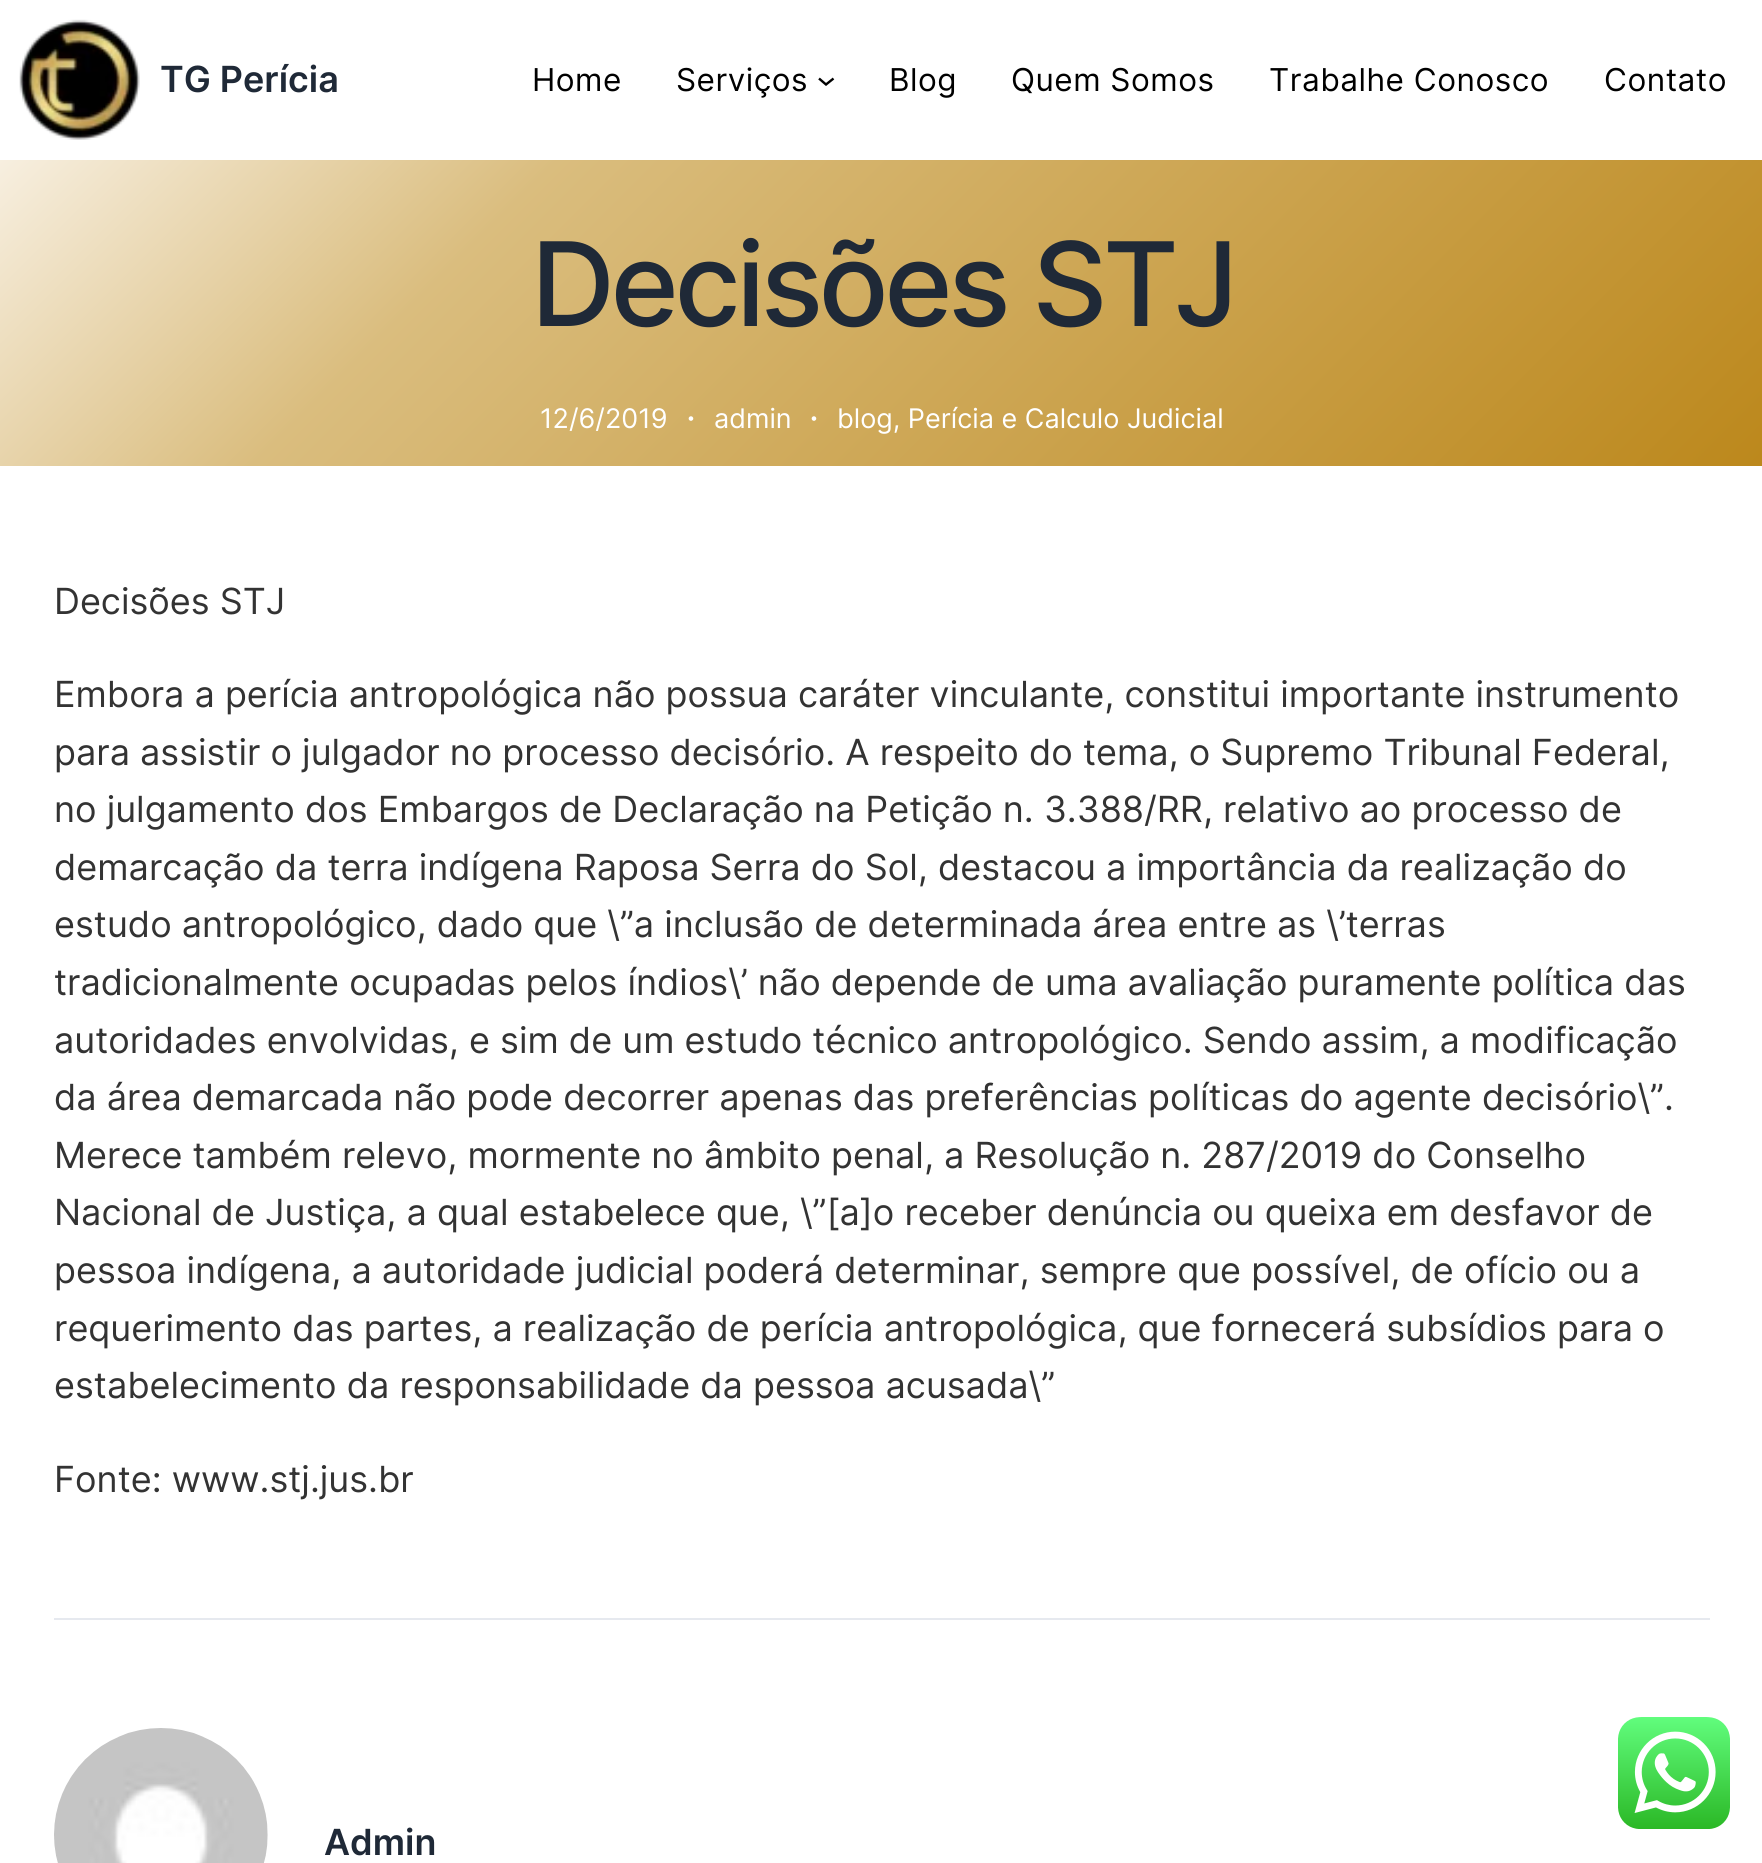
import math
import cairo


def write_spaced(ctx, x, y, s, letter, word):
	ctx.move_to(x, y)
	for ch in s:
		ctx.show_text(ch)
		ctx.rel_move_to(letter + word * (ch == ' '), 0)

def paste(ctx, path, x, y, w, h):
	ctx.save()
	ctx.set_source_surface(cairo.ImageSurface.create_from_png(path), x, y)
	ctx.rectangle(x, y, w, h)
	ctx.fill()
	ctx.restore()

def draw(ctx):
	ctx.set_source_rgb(1, 1, 1)
	ctx.paint()
	paste(ctx, 'media/1.png', 19, 19, 121, 121)
	ctx.select_font_face('Inter SemiBold')
	ctx.set_font_size(36)
	ctx.set_source_rgb(0.122, 0.161, 0.216)
	ctx.move_to(160, 92)
	ctx.show_text('TG Perícia')
	ctx.select_font_face('Inter')
	ctx.set_font_size(31.5)
	ctx.set_source_rgb(0, 0, 0)
	write_spaced(ctx, 532, 91, 'Home', 0.5, 0)
	write_spaced(ctx, 676, 91, 'Serviços', 0.5, 0)
	ctx.new_path()
	ctx.move_to(819, 78.5)
	ctx.line_to(826, 84.5)
	ctx.line_to(833.5, 78.5)
	ctx.set_line_width(2.4)
	ctx.stroke()
	for x, y, s in [
		(889, 91, 'Blog'),
		(1011, 91, 'Quem Somos'),
		(1269, 91, 'Trabalhe Conosco'),
		(1604, 91, 'Contato'),
	]:
		write_spaced(ctx, x, y, s, 0.5, 0)
	gradient = cairo.LinearGradient(364, -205, 1400, 830)
	gradient.add_color_stop_rgba(0, 0.969, 0.937, 0.878, 1)
	gradient.add_color_stop_rgba(0.27, 0.855, 0.741, 0.494, 1)
	gradient.add_color_stop_rgba(1, 0.737, 0.533, 0.11, 1)
	ctx.set_source(gradient)
	ctx.rectangle(0, 160, 1762, 306)
	ctx.fill()
	ctx.select_font_face('Inter Medium')
	ctx.set_font_size(116.5)
	ctx.set_source_rgb(0.122, 0.161, 0.216)
	write_spaced(ctx, 531, 326, 'Decisões STJ', -4.5, 0)
	ctx.select_font_face('Inter')
	ctx.set_font_size(27)
	ctx.set_source_rgb(1, 1, 1)
	ctx.move_to(540, 428)
	ctx.show_text('12/6/2019')
	ctx.set_font_size(36)
	ctx.move_to(686, 430)
	ctx.show_text('·')
	ctx.set_font_size(27)
	ctx.move_to(714, 428)
	ctx.show_text('admin')
	ctx.set_font_size(36)
	ctx.move_to(809, 430)
	ctx.show_text('·')
	ctx.set_font_size(27)
	ctx.move_to(837, 428)
	ctx.show_text('blog, Perícia e Calculo Judicial')
	ctx.set_font_size(36)
	ctx.set_source_rgb(0.2, 0.2, 0.2)
	for x, y, s in [
		(54, 614, 'Decisões STJ'),
		(54, 707, 'Embora a perícia antropológica não possua caráter vinculante, constitui importante instrumento'),
		(54, 765, 'para assistir o julgador no processo decisório. A respeito do tema, o Supremo Tribunal Federal,'),
		(54, 822, 'no julgamento dos Embargos de Declaração na Petição n. 3.388/RR, relativo ao processo de'),
		(54, 880, 'demarcação da terra indígena Raposa Serra do Sol, destacou a importância da realização do'),
		(54, 937, 'estudo antropológico, dado que \\”a inclusão de determinada área entre as \\’terras'),
		(54, 995, 'tradicionalmente ocupadas pelos índios\\’ não depende de uma avaliação puramente política das'),
		(54, 1053, 'autoridades envolvidas, e sim de um estudo técnico antropológico. Sendo assim, a modificação'),
		(54, 1110, 'da área demarcada não pode decorrer apenas das preferências políticas do agente decisório\\”.'),
		(54, 1168, 'Merece também relevo, mormente no âmbito penal, a Resolução n. 287/2019 do Conselho'),
		(54, 1225, 'Nacional de Justiça, a qual estabelece que, \\”[a]o receber denúncia ou queixa em desfavor de'),
		(54, 1283, 'pessoa indígena, a autoridade judicial poderá determinar, sempre que possível, de ofício ou a'),
		(54, 1341, 'requerimento das partes, a realização de perícia antropológica, que fornecerá subsídios para o'),
		(54, 1398, 'estabelecimento da responsabilidade da pessoa acusada\\”'),
		(54, 1492, 'Fonte: www.stj.jus.br'),
	]:
		ctx.move_to(x, y)
		ctx.show_text(s)
	ctx.set_source_rgb(0.902, 0.914, 0.937)
	ctx.rectangle(54, 1618, 1656, 2)
	ctx.fill()
	paste(ctx, 'media/2.png', 54, 1728, 214, 135)
	ctx.select_font_face('Inter SemiBold')
	ctx.set_source_rgb(0.122, 0.161, 0.216)
	ctx.move_to(324, 1855)
	ctx.show_text('Admin')
	paste(ctx, 'media/3.png', 1618, 1717, 112, 112)


surface = cairo.ImageSurface(cairo.FORMAT_RGB24, 1762, 1863)
ctx = cairo.Context(surface)
options = cairo.FontOptions()
options.set_hint_metrics(cairo.HINT_METRICS_OFF)
options.set_hint_style(cairo.HINT_STYLE_NONE)
ctx.set_font_options(options)
ctx.set_miter_limit(4)
draw(ctx)
surface.write_to_png('image.png')
